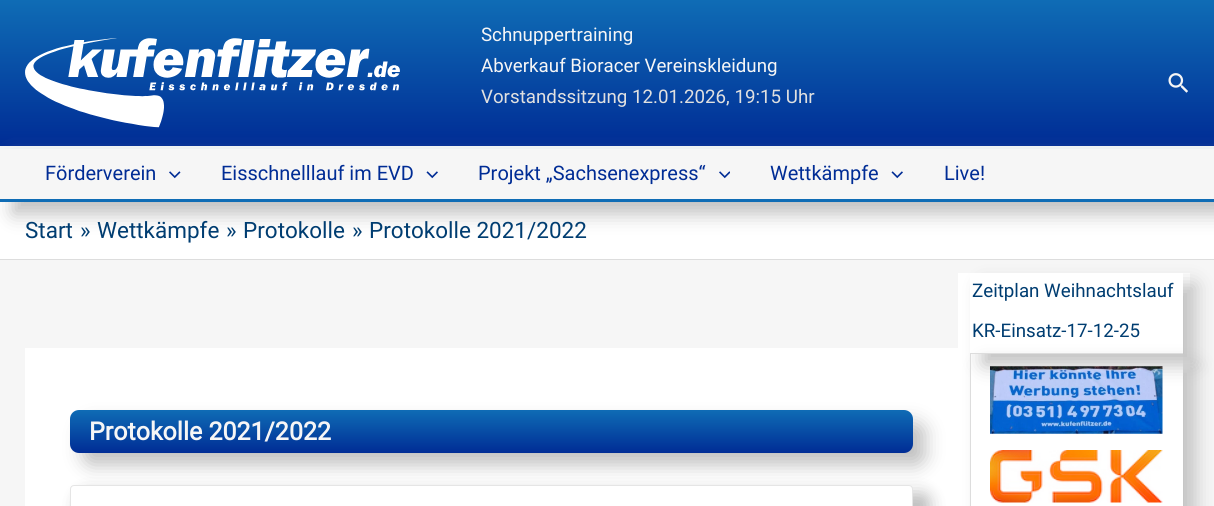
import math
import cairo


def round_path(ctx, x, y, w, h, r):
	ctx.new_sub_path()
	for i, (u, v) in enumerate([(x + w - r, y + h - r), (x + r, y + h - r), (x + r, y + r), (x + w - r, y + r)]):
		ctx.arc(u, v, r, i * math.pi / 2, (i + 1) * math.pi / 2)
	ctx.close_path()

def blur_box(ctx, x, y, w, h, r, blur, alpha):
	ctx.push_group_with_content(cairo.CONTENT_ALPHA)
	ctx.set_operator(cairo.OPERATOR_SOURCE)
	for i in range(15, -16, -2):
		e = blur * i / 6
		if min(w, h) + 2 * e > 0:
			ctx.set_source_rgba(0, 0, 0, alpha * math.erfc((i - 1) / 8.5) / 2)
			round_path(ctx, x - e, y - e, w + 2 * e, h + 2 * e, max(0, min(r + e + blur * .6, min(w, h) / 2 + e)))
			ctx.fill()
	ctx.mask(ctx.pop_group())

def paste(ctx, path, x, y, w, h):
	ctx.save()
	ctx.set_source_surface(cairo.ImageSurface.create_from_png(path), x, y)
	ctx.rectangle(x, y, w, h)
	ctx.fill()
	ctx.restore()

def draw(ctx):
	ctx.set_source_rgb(0.961, 0.961, 0.961)
	ctx.paint()
	gradient = cairo.LinearGradient(608, 0, 608, 146)
	gradient.add_color_stop_rgba(0, 0.059, 0.424, 0.71, 1)
	gradient.add_color_stop_rgba(1, 0, 0.173, 0.584, 1)
	ctx.set_source(gradient)
	ctx.rectangle(0, 0, 1214, 146)
	ctx.fill()
	ctx.set_source_rgb(0.949, 0.961, 0.969)
	ctx.rectangle(0, 146, 1214, 3)
	ctx.fill()
	paste(ctx, 'media/1.png', 25, 38, 375, 90)
	ctx.select_font_face('Roboto')
	ctx.set_font_size(18.75)
	ctx.set_source_rgb(0.961, 0.961, 0.961)
	ctx.move_to(481, 41)
	ctx.show_text('Schnuppertraining')
	ctx.move_to(481, 72)
	ctx.show_text('Abverkauf Bioracer Vereinskleidung')
	ctx.set_source_rgb(0.878, 0.878, 0.878)
	ctx.move_to(481, 103)
	ctx.show_text('Vorstandssitzung 12.01.2026, 19:15 Uhr')
	paste(ctx, 'media/2.png', 1168, 73, 20, 20)
	ctx.set_source_rgb(1, 1, 1)
	ctx.rectangle(958, 273, 232, 233)
	ctx.fill()
	ctx.rectangle(25, 348, 933, 158)
	ctx.fill()
	ctx.save()
	ctx.set_fill_rule(cairo.FILL_RULE_EVEN_ODD)
	ctx.new_path()
	ctx.move_to(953, 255)
	ctx.line_to(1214, 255)
	ctx.line_to(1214, 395)
	ctx.line_to(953, 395)
	ctx.close_path()
	ctx.move_to(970, 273)
	ctx.line_to(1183, 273)
	ctx.line_to(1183, 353)
	ctx.line_to(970, 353)
	ctx.close_path()
	ctx.clip()
	ctx.set_source_rgb(0.753, 0.753, 0.753)
	blur_box(ctx, 983, 285, 212, 80, 0, 9.5, 1)
	ctx.restore()
	ctx.rectangle(0, 202, 1214, 57)
	ctx.fill()
	ctx.save()
	ctx.set_fill_rule(cairo.FILL_RULE_EVEN_ODD)
	ctx.new_path()
	ctx.move_to(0, 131)
	ctx.line_to(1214, 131)
	ctx.line_to(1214, 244)
	ctx.line_to(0, 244)
	ctx.close_path()
	ctx.move_to(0, 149)
	ctx.line_to(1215, 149)
	ctx.line_to(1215, 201)
	ctx.line_to(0, 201)
	ctx.close_path()
	ctx.clip()
	ctx.set_source_rgb(0.753, 0.753, 0.753)
	blur_box(ctx, 13, 161, 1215, 53, 0, 9.5, 1)
	ctx.restore()
	ctx.set_source_rgb(0.059, 0.424, 0.71)
	ctx.rectangle(0, 199, 1214, 3)
	ctx.fill()
	ctx.set_font_size(20)
	ctx.set_source_rgb(0, 0.173, 0.584)
	ctx.move_to(45, 180)
	ctx.show_text('Förderverein')
	paste(ctx, 'media/3.png', 169, 171, 12, 8)
	ctx.move_to(221, 180)
	ctx.show_text('Eisschnelllauf im EVD')
	paste(ctx, 'media/4.png', 426, 171, 12, 8)
	ctx.move_to(478, 180)
	ctx.show_text('Projekt „Sachsenexpress“')
	paste(ctx, 'media/5.png', 719, 171, 11, 8)
	ctx.move_to(770, 180)
	ctx.show_text('Wettkämpfe')
	paste(ctx, 'media/4.png', 891, 171, 12, 8)
	ctx.move_to(944, 180)
	ctx.show_text('Live!')
	ctx.set_source_rgb(0.867, 0.867, 0.867)
	ctx.rectangle(0, 259, 1214, 1)
	ctx.fill()
	ctx.set_font_size(22.5)
	ctx.set_source_rgb(0, 0.239, 0.443)
	for x, y, s in [
		(25, 238, 'Start'),
		(80, 238, '»'),
		(97, 238, 'Wettkämpfe'),
		(226, 238, '»'),
		(243, 238, 'Protokolle'),
		(352, 238, '»'),
		(369, 238, 'Protokolle 2021/2022'),
	]:
		ctx.move_to(x, y)
		ctx.show_text(s)
	ctx.set_font_size(18.75)
	ctx.move_to(972, 297)
	ctx.show_text('Zeitplan Weihnachtslauf')
	ctx.save()
	ctx.set_fill_rule(cairo.FILL_RULE_EVEN_ODD)
	ctx.new_path()
	ctx.move_to(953, 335)
	ctx.line_to(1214, 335)
	ctx.line_to(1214, 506)
	ctx.line_to(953, 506)
	ctx.close_path()
	ctx.move_to(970, 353)
	ctx.line_to(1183, 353)
	ctx.line_to(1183, 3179)
	ctx.line_to(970, 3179)
	ctx.close_path()
	ctx.clip()
	ctx.set_source_rgb(0.753, 0.753, 0.753)
	blur_box(ctx, 983, 365, 212, 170, 0, 9.5, 1)
	ctx.restore()
	ctx.move_to(972, 337)
	ctx.show_text('KR-Einsatz-17-12-25')
	ctx.set_source_rgb(0.867, 0.867, 0.867)
	ctx.rectangle(970, 353, 213, 1)
	ctx.fill()
	ctx.rectangle(970, 353, 1, 153)
	ctx.fill()
	paste(ctx, 'media/6.png', 990, 366, 173, 68)
	paste(ctx, 'media/7.png', 990, 450, 173, 53)
	ctx.set_source_rgb(0.753, 0.753, 0.753)
	blur_box(ctx, 83, 423, 842, 42, 9, 9.5, 1)
	gradient = cairo.LinearGradient(491, 410, 491, 453)
	gradient.add_color_stop_rgba(0, 0.059, 0.424, 0.71, 1)
	gradient.add_color_stop_rgba(1, 0, 0.173, 0.584, 1)
	ctx.set_source(gradient)
	round_path(ctx, 70, 410, 843, 43, 9)
	ctx.fill()
	ctx.select_font_face('Roboto', cairo.FONT_SLANT_NORMAL, cairo.FONT_WEIGHT_BOLD)
	ctx.set_font_size(25)
	ctx.set_source_rgb(0.961, 0.961, 0.961)
	ctx.move_to(89, 440)
	ctx.show_text('Protokolle 2021/2022')
	ctx.set_source_rgb(0.753, 0.753, 0.753)
	blur_box(ctx, 83, 498, 842, 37, 0, 9.5, 1)
	blur_box(ctx, 83, 498, 842, 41, 4, 9.5, 1)
	ctx.set_source_rgb(1, 1, 1)
	round_path(ctx, 70.5, 485.5, 842, 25, 3.5)
	ctx.fill_preserve()
	ctx.set_source_rgb(0.898, 0.898, 0.898)
	ctx.set_line_width(1)
	ctx.stroke()


surface = cairo.ImageSurface(cairo.FORMAT_RGB24, 1214, 506)
ctx = cairo.Context(surface)
options = cairo.FontOptions()
options.set_hint_metrics(cairo.HINT_METRICS_OFF)
options.set_hint_style(cairo.HINT_STYLE_NONE)
ctx.set_font_options(options)
ctx.set_miter_limit(4)
draw(ctx)
surface.write_to_png('image.png')
